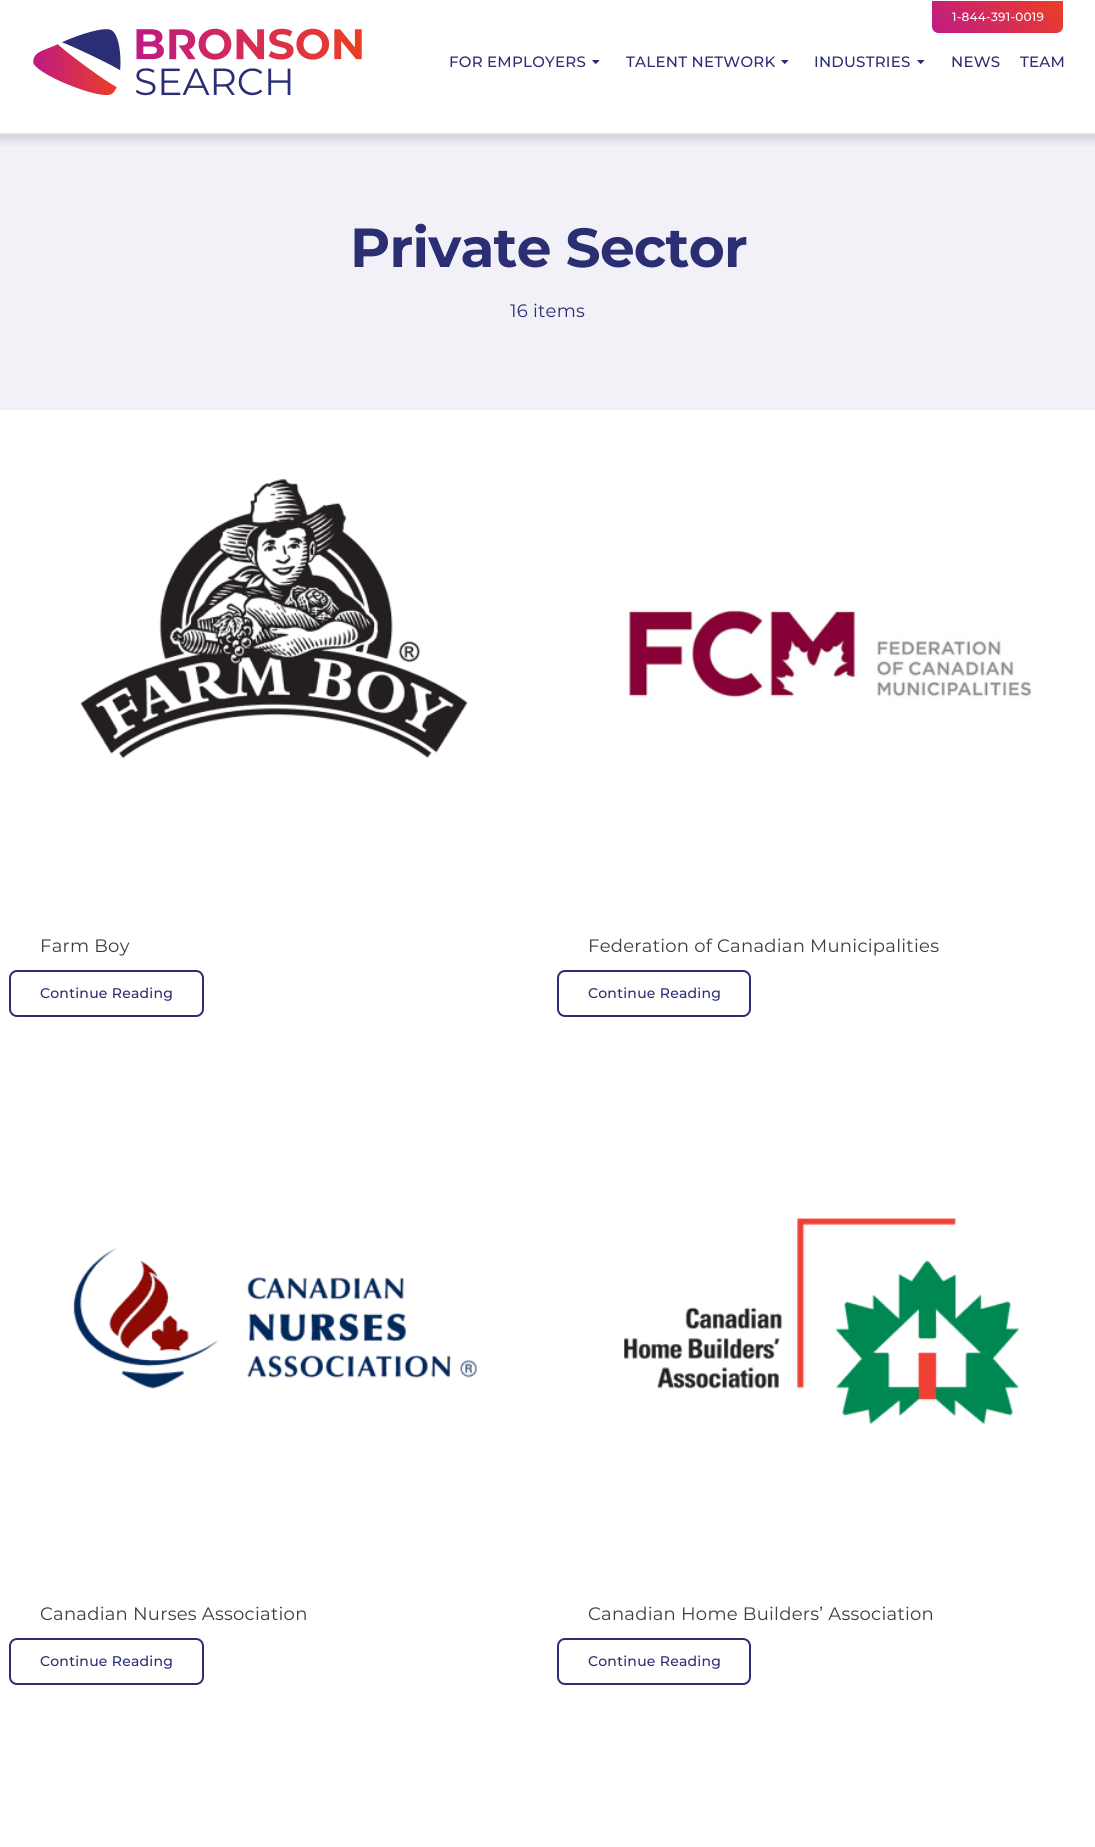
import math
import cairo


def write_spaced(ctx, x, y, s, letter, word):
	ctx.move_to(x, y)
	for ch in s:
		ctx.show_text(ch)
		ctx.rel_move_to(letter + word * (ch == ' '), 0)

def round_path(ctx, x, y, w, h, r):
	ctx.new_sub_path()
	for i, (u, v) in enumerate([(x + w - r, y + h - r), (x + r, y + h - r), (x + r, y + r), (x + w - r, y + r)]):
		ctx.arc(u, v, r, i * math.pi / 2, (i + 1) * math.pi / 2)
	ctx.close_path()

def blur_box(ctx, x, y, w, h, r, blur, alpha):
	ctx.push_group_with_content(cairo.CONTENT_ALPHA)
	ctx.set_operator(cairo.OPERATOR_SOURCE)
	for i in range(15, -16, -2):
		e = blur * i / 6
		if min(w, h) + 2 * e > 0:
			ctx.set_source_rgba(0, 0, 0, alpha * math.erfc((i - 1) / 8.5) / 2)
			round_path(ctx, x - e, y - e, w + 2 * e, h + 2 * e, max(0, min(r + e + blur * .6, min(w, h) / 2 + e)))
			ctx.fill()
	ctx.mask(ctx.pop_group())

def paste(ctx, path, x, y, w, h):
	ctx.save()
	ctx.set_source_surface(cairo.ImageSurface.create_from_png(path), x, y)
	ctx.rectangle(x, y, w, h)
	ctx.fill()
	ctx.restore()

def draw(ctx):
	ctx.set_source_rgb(1, 1, 1)
	ctx.paint()
	ctx.set_source_rgb(0.945, 0.945, 0.965)
	ctx.rectangle(0, 135, 1095, 275)
	ctx.fill()
	ctx.save()
	ctx.rectangle(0, 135, 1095, 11)
	ctx.clip()
	ctx.set_source_rgb(0.435, 0.486, 0.565)
	blur_box(ctx, -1, -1, 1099, 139, 0, 5, 0.36)
	ctx.restore()
	ctx.set_source_rgb(0.886, 0.886, 0.886)
	ctx.rectangle(0, 133, 1095, 2)
	ctx.fill()
	gradient = cairo.LinearGradient(957, 58, 1038, -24)
	gradient.add_color_stop_rgba(0, 0.749, 0.102, 0.525, 1)
	gradient.add_color_stop_rgba(1, 0.929, 0.247, 0.141, 1)
	ctx.set_source(gradient)
	ctx.new_path()
	ctx.move_to(932, 1)
	ctx.line_to(1063, 1)
	ctx.line_to(1063, 27)
	ctx.curve_to(1063, 30.5, 1060.5, 33, 1057, 33)
	ctx.line_to(938, 33)
	ctx.curve_to(934.5, 33, 932, 30.5, 932, 27)
	ctx.close_path()
	ctx.fill()
	ctx.set_source_rgb(1, 1, 1)
	ctx.set_fill_rule(cairo.FILL_RULE_EVEN_ODD)
	ctx.new_path()
	ctx.move_to(930, 1)
	ctx.line_to(1065, 1)
	ctx.line_to(1065, 27)
	ctx.curve_to(1065, 31, 1061, 35, 1057, 35)
	ctx.line_to(938, 35)
	ctx.curve_to(934, 35, 930, 31, 930, 27)
	ctx.close_path()
	ctx.move_to(932, 1)
	ctx.line_to(1063, 1)
	ctx.line_to(1063, 27)
	ctx.curve_to(1063, 30, 1060, 33, 1057, 33)
	ctx.line_to(938, 33)
	ctx.curve_to(935, 33, 932, 30, 932, 27)
	ctx.close_path()
	ctx.fill()
	ctx.select_font_face('Montserrat Medium')
	ctx.set_font_size(12)
	write_spaced(ctx, 952, 21, '1-844-391-0019', 0.25, 0)
	paste(ctx, 'media/1.png', 33, 28, 329, 68)
	ctx.set_font_size(15)
	ctx.set_source_rgb(0.173, 0.18, 0.455)
	write_spaced(ctx, 449, 67, 'FOR EMPLOYERS', 0.25, 0)
	paste(ctx, 'media/2.png', 592, 60, 8, 4)
	write_spaced(ctx, 626, 67, 'TALENT NETWORK', 0.25, 0)
	paste(ctx, 'media/2.png', 781, 60, 8, 4)
	write_spaced(ctx, 814, 67, 'INDUSTRIES', 0.25, 0)
	paste(ctx, 'media/2.png', 917, 60, 8, 4)
	write_spaced(ctx, 951, 67, 'NEWS', 0.25, 0)
	write_spaced(ctx, 1020, 67, 'TEAM', 0.25, 0)
	ctx.select_font_face('Montserrat', cairo.FONT_SLANT_NORMAL, cairo.FONT_WEIGHT_BOLD)
	ctx.set_font_size(55)
	write_spaced(ctx, 350, 267, 'Private Sector', -0.75, 0)
	ctx.select_font_face('Montserrat')
	ctx.set_font_size(18)
	write_spaced(ctx, 510, 317, '16 items', 0.25, 0)
	paste(ctx, 'media/3.png', 80, 478, 388, 281)
	ctx.set_source_rgb(0.224, 0.247, 0.255)
	write_spaced(ctx, 40, 952, 'Farm Boy', 0.25, 0)
	round_path(ctx, 10, 971, 193, 45, 7)
	ctx.set_source_rgb(0.173, 0.18, 0.455)
	ctx.stroke()
	ctx.select_font_face('Montserrat Medium')
	ctx.set_font_size(14)
	write_spaced(ctx, 40, 998, 'Continue Reading', 0.25, 0)
	paste(ctx, 'media/4.png', 628, 609, 404, 89)
	ctx.select_font_face('Montserrat')
	ctx.set_font_size(18)
	ctx.set_source_rgb(0.224, 0.247, 0.255)
	write_spaced(ctx, 588, 952, 'Federation of Canadian Municipalities', 0.25, 0)
	round_path(ctx, 558, 971, 192, 45, 7)
	ctx.set_source_rgb(0.173, 0.18, 0.455)
	ctx.stroke()
	ctx.select_font_face('Montserrat Medium')
	ctx.set_font_size(14)
	write_spaced(ctx, 588, 998, 'Continue Reading', 0.25, 0)
	paste(ctx, 'media/5.png', 73, 1247, 404, 142)
	ctx.select_font_face('Montserrat')
	ctx.set_font_size(18)
	ctx.set_source_rgb(0.224, 0.247, 0.255)
	write_spaced(ctx, 40, 1620, 'Canadian Nurses Association', 0.25, 0)
	round_path(ctx, 10, 1639, 193, 45, 7)
	ctx.set_source_rgb(0.173, 0.18, 0.455)
	ctx.stroke()
	ctx.select_font_face('Montserrat Medium')
	ctx.set_font_size(14)
	write_spaced(ctx, 40, 1666, 'Continue Reading', 0.25, 0)
	paste(ctx, 'media/6.png', 624, 1218, 395, 206)
	ctx.select_font_face('Montserrat')
	ctx.set_font_size(18)
	ctx.set_source_rgb(0.224, 0.247, 0.255)
	write_spaced(ctx, 588, 1620, 'Canadian Home Builders’ Association', 0.25, 0)
	round_path(ctx, 558, 1639, 192, 45, 7)
	ctx.set_source_rgb(0.173, 0.18, 0.455)
	ctx.stroke()
	ctx.select_font_face('Montserrat Medium')
	ctx.set_font_size(14)
	write_spaced(ctx, 588, 1666, 'Continue Reading', 0.25, 0)


surface = cairo.ImageSurface(cairo.FORMAT_RGB24, 1095, 1847)
ctx = cairo.Context(surface)
options = cairo.FontOptions()
options.set_hint_metrics(cairo.HINT_METRICS_OFF)
options.set_hint_style(cairo.HINT_STYLE_NONE)
ctx.set_font_options(options)
ctx.set_miter_limit(4)
draw(ctx)
surface.write_to_png('image.png')
